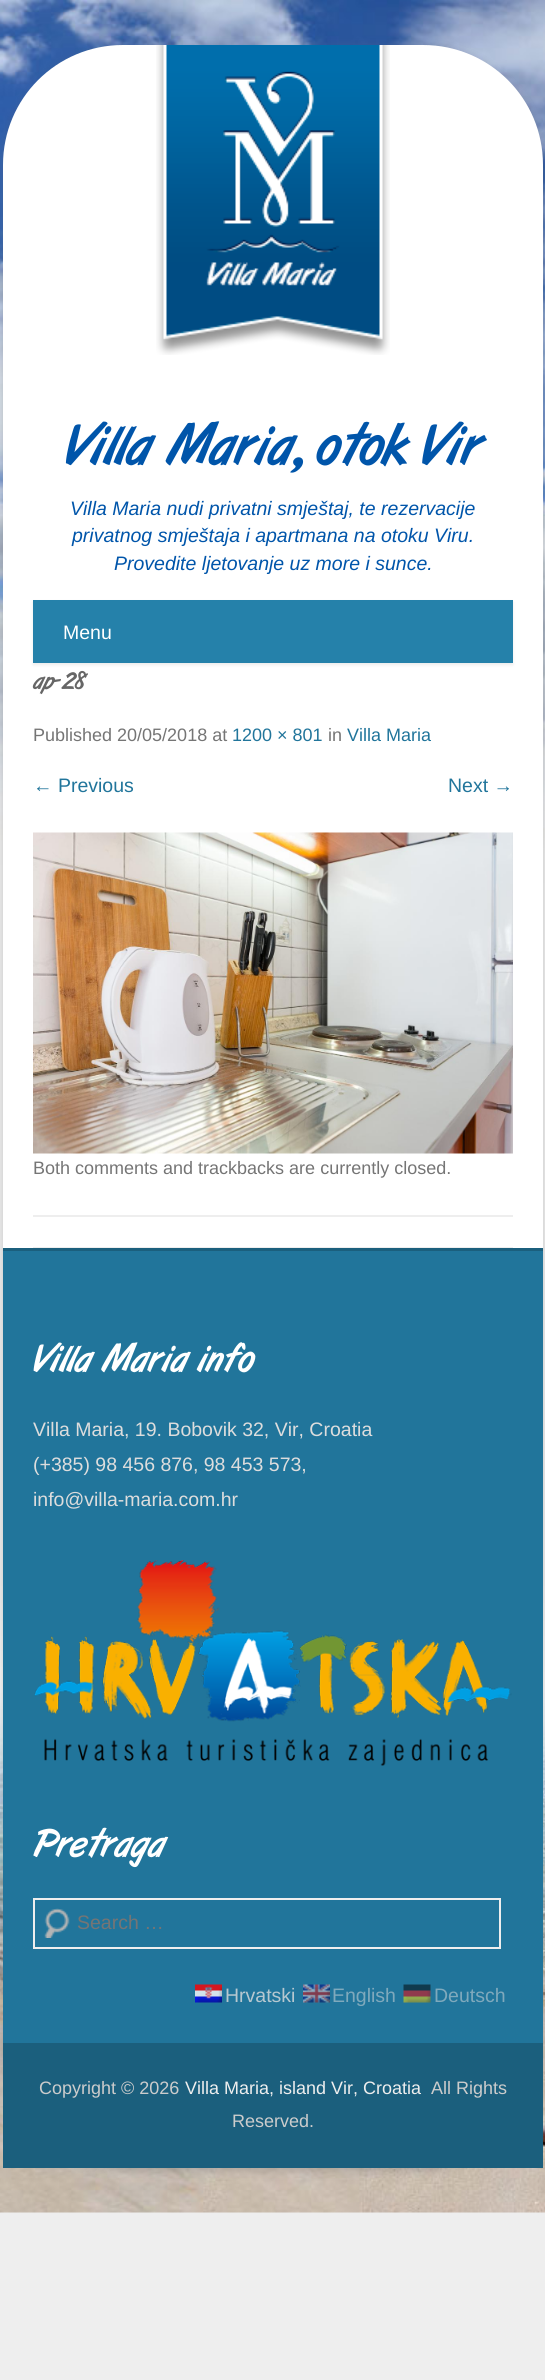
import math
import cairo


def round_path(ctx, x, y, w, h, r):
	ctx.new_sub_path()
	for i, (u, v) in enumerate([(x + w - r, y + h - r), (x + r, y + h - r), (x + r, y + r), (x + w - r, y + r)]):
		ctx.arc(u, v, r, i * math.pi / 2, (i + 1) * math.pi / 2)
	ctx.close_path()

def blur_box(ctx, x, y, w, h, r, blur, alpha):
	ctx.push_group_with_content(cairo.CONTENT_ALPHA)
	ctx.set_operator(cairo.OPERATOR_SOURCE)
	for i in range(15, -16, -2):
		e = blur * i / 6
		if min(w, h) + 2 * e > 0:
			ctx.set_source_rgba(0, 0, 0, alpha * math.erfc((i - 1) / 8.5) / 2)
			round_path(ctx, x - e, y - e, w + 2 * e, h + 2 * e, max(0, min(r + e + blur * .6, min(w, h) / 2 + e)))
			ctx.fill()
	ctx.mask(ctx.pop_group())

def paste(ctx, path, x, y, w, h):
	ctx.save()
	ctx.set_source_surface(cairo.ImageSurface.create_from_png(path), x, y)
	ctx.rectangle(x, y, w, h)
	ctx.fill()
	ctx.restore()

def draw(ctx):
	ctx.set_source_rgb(1, 1, 1)
	ctx.paint()
	paste(ctx, 'media/1.png', 0, 0, 545, 2380)
	ctx.set_source_rgb(0.392, 0.392, 0.392)
	blur_box(ctx, 3, 48, 540, 2123, 120, 4.5, 0.3)
	ctx.set_source_rgb(1, 1, 1)
	ctx.new_path()
	ctx.move_to(123, 45)
	ctx.line_to(423, 45)
	ctx.curve_to(489.5, 45, 543, 98.5, 543, 165)
	ctx.line_to(543, 2168)
	ctx.line_to(3, 2168)
	ctx.line_to(3, 165)
	ctx.curve_to(3, 98.5, 56.5, 45, 123, 45)
	ctx.close_path()
	ctx.fill()
	paste(ctx, 'media/2.png', 156, 45, 234, 310)
	ctx.select_font_face('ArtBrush')
	ctx.set_font_size(57.5)
	ctx.set_source_rgb(0, 0.333, 0.667)
	ctx.move_to(65, 465)
	ctx.show_text('Villa Maria, otok Vir')
	ctx.select_font_face('Liberation Sans', cairo.FONT_SLANT_ITALIC)
	ctx.set_font_size(19.5)
	for x, y, s in [
		(70, 515, 'Villa Maria nudi privatni smještaj, te rezervacije'),
		(72, 542, 'privatnog smještaja i apartmana na otoku Viru.'),
		(114, 570, 'Provedite ljetovanje uz more i sunce.'),
	]:
		ctx.move_to(x, y)
		ctx.show_text(s)
	ctx.set_source_rgb(0.251, 0.251, 0.251)
	blur_box(ctx, 33, 602, 480, 63, 0, 1.5, 0.1)
	ctx.set_source_rgb(0.145, 0.506, 0.667)
	ctx.rectangle(33, 600, 480, 63)
	ctx.fill()
	ctx.select_font_face('Liberation Sans')
	ctx.set_source_rgb(1, 1, 1)
	ctx.move_to(63, 639)
	ctx.show_text('Menu')
	ctx.set_source_rgb(0.933, 0.933, 0.933)
	ctx.rectangle(33, 1247, 480, 1)
	ctx.fill()
	ctx.rectangle(33, 1215, 480, 2)
	ctx.fill()
	ctx.select_font_face('ArtBrush')
	ctx.set_font_size(24)
	ctx.set_source_rgb(0.4, 0.4, 0.4)
	ctx.move_to(33, 689)
	ctx.show_text('ap-28')
	ctx.select_font_face('Liberation Sans')
	ctx.set_font_size(18)
	ctx.set_source_rgb(0.459, 0.459, 0.459)
	ctx.move_to(33, 741)
	ctx.show_text('Published 20/05/2018 at')
	ctx.set_source_rgb(0.129, 0.459, 0.608)
	ctx.move_to(232, 741)
	ctx.show_text('1200 × 801')
	ctx.set_source_rgb(0.459, 0.459, 0.459)
	ctx.move_to(328, 741)
	ctx.show_text('in')
	ctx.set_source_rgb(0.129, 0.459, 0.608)
	ctx.move_to(347, 741)
	ctx.show_text('Villa Maria')
	ctx.set_font_size(19.5)
	ctx.move_to(33, 792)
	ctx.show_text('← Previous')
	ctx.move_to(448, 792)
	ctx.show_text('Next →')
	paste(ctx, 'media/3.png', 33, 832, 480, 322)
	ctx.set_font_size(18)
	ctx.set_source_rgb(0.459, 0.459, 0.459)
	ctx.move_to(33, 1174)
	ctx.show_text('Both comments and trackbacks are currently closed.')
	ctx.set_source_rgb(0.106, 0.373, 0.49)
	ctx.rectangle(3, 1248, 540, 3)
	ctx.fill()
	ctx.set_source_rgb(0.129, 0.459, 0.608)
	ctx.rectangle(3, 1251, 540, 792)
	ctx.fill()
	ctx.select_font_face('ArtBrush')
	ctx.set_font_size(39)
	ctx.set_source_rgb(1, 1, 1)
	ctx.move_to(33, 1372)
	ctx.show_text('Villa Maria info')
	ctx.select_font_face('Liberation Sans')
	ctx.set_font_size(19.5)
	ctx.set_source_rgb(0.867, 0.867, 0.867)
	for x, y, s in [
		(33, 1436, 'Villa Maria, 19. Bobovik 32, Vir, Croatia'),
		(33, 1471, '(+385) 98 456 876, 98 453 573,'),
		(33, 1506, 'info@villa-maria.com.hr'),
	]:
		ctx.move_to(x, y)
		ctx.show_text(s)
	paste(ctx, 'media/4.png', 34, 1560, 478, 206)
	ctx.select_font_face('ArtBrush')
	ctx.set_font_size(39)
	ctx.set_source_rgb(1, 1, 1)
	ctx.move_to(33, 1857)
	ctx.show_text('Pretraga')
	paste(ctx, 'media/5.png', 44, 1908, 26, 30)
	ctx.rectangle(34, 1899, 466, 49)
	ctx.set_source_rgb(0.933, 0.933, 0.933)
	ctx.stroke()
	ctx.select_font_face('Liberation Sans')
	ctx.set_font_size(19.5)
	ctx.set_source_rgb(0.459, 0.459, 0.459)
	ctx.move_to(77, 1929)
	ctx.show_text('Search …')
	paste(ctx, 'media/6.png', 195, 1984, 27, 19)
	ctx.set_source_rgb(0.718, 0.784, 0.816)
	ctx.move_to(225, 2002)
	ctx.show_text('Hrvatski')
	paste(ctx, 'media/7.png', 303, 1984, 27, 19)
	ctx.set_source_rgb(0.498, 0.663, 0.737)
	ctx.move_to(332, 2002)
	ctx.show_text('English')
	paste(ctx, 'media/8.png', 403, 1984, 28, 19)
	ctx.move_to(434, 2002)
	ctx.show_text('Deutsch')
	ctx.set_source_rgb(0.106, 0.373, 0.49)
	ctx.rectangle(3, 2043, 540, 125)
	ctx.fill()
	ctx.set_font_size(18)
	ctx.set_source_rgb(0.8, 0.8, 0.8)
	ctx.move_to(39, 2094)
	ctx.show_text('Copyright © 2026')
	ctx.set_source_rgb(0.933, 0.933, 0.933)
	ctx.move_to(185, 2094)
	ctx.show_text('Villa Maria, island Vir, Croatia')
	ctx.set_source_rgb(0.8, 0.8, 0.8)
	ctx.move_to(431, 2094)
	ctx.show_text('All Rights')
	ctx.move_to(232, 2127)
	ctx.show_text('Reserved.')


surface = cairo.ImageSurface(cairo.FORMAT_RGB24, 545, 2380)
ctx = cairo.Context(surface)
options = cairo.FontOptions()
options.set_hint_metrics(cairo.HINT_METRICS_OFF)
options.set_hint_style(cairo.HINT_STYLE_NONE)
ctx.set_font_options(options)
ctx.set_miter_limit(4)
draw(ctx)
surface.write_to_png('image.png')
